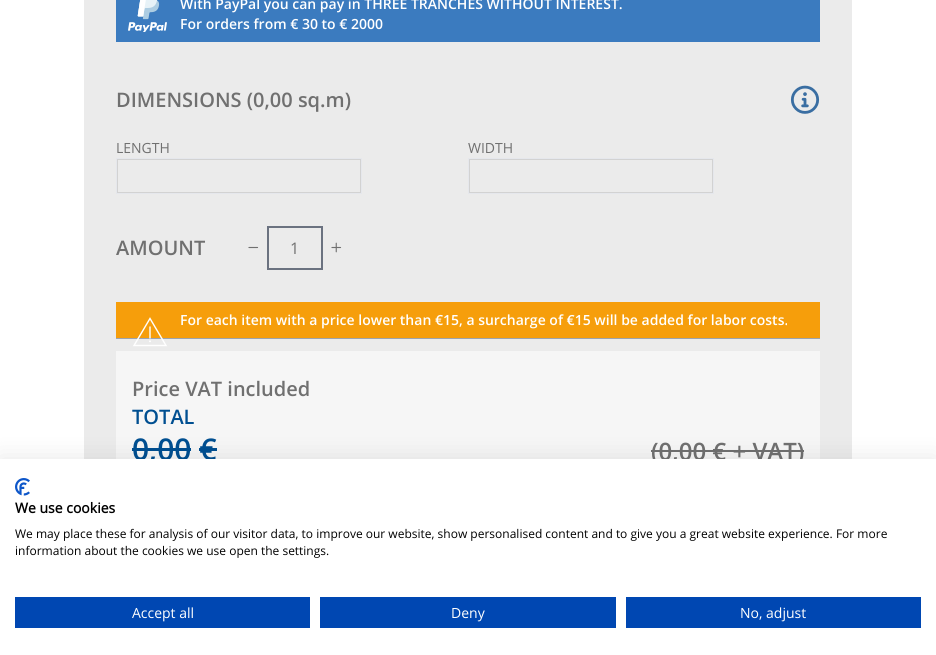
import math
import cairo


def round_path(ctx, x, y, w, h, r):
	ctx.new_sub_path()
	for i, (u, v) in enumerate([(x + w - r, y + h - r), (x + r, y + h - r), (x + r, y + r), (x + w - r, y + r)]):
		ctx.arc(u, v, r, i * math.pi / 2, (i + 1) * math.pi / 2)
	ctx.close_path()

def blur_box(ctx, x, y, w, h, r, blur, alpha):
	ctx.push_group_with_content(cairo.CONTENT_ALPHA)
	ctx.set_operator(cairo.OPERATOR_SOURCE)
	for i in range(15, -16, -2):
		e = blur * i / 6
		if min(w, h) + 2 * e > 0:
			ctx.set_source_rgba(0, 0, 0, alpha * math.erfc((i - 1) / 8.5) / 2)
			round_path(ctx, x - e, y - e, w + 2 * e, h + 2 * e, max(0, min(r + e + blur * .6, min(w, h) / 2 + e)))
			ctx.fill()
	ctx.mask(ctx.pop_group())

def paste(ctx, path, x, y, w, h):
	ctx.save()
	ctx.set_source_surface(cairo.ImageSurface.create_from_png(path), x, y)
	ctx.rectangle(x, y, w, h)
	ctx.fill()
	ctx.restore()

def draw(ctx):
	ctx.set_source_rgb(1, 1, 1)
	ctx.paint()
	ctx.set_source_rgb(0.918, 0.918, 0.918)
	ctx.rectangle(84, 0, 768, 459)
	ctx.fill()
	ctx.set_source_rgb(0.231, 0.482, 0.749)
	ctx.rectangle(116, 0, 704, 42)
	ctx.fill()
	paste(ctx, 'media/1.png', 128, 0, 39, 32)
	ctx.select_font_face('Open Sans SemiBold')
	ctx.set_font_size(14)
	ctx.set_source_rgb(1, 1, 1)
	ctx.move_to(180, 9)
	ctx.show_text('With PayPal you can pay in THREE TRANCHES WITHOUT INTEREST.')
	ctx.move_to(180, 29)
	ctx.show_text('For orders from € 30 to € 2000')
	ctx.set_font_size(20)
	ctx.set_source_rgb(0.439, 0.439, 0.439)
	ctx.move_to(116, 107)
	ctx.show_text('DIMENSIONS (0,00 sq.m)')
	paste(ctx, 'media/2.png', 790, 85, 30, 29)
	ctx.select_font_face('Open Sans')
	ctx.set_font_size(14)
	ctx.move_to(116, 153)
	ctx.show_text('LENGTH')
	ctx.rectangle(116.5, 158.5, 245, 35)
	ctx.set_source_rgb(0.898, 0.906, 0.922)
	ctx.set_line_width(1)
	ctx.stroke()
	ctx.rectangle(117.5, 159.5, 243, 33)
	ctx.set_source_rgb(0.824, 0.824, 0.824)
	ctx.stroke()
	ctx.set_source_rgb(0.439, 0.439, 0.439)
	ctx.move_to(468, 153)
	ctx.show_text('WIDTH')
	ctx.rectangle(468.5, 158.5, 245, 35)
	ctx.set_source_rgb(0.898, 0.906, 0.922)
	ctx.stroke()
	ctx.rectangle(469.5, 159.5, 243, 33)
	ctx.set_source_rgb(0.824, 0.824, 0.824)
	ctx.stroke()
	ctx.select_font_face('Open Sans SemiBold')
	ctx.set_font_size(20)
	ctx.set_source_rgb(0.439, 0.439, 0.439)
	ctx.move_to(116, 255)
	ctx.show_text('AMOUNT')
	paste(ctx, 'media/3.png', 248, 246, 11, 3)
	ctx.rectangle(268, 227, 54, 42)
	ctx.set_source_rgb(0.42, 0.447, 0.502)
	ctx.set_line_width(2)
	ctx.stroke()
	ctx.select_font_face('Open Sans')
	ctx.set_font_size(16)
	ctx.set_source_rgb(0.439, 0.439, 0.439)
	ctx.move_to(290, 254)
	ctx.show_text('1')
	paste(ctx, 'media/4.png', 331, 242, 11, 11)
	ctx.set_source_rgb(0.961, 0.62, 0.043)
	ctx.rectangle(116, 302, 704, 36)
	ctx.fill()
	ctx.set_source_rgb(0.612, 0.639, 0.686)
	ctx.rectangle(116, 338, 704, 1)
	ctx.fill()
	ctx.new_path()
	ctx.move_to(150, 318.5)
	ctx.line_to(166, 345.5)
	ctx.line_to(134, 345.5)
	ctx.close_path()
	ctx.set_source_rgb(1, 1, 1)
	ctx.set_line_width(1.4)
	ctx.stroke()
	ctx.new_path()
	ctx.move_to(150, 327)
	ctx.line_to(150, 338)
	ctx.set_line_cap(cairo.LINE_CAP_ROUND)
	ctx.set_line_join(cairo.LINE_JOIN_ROUND)
	ctx.stroke()
	ctx.arc(150, 341.3, 1, 0, 2 * math.pi)
	ctx.fill()
	ctx.select_font_face('Open Sans SemiBold')
	ctx.set_font_size(14)
	ctx.move_to(180, 325)
	ctx.show_text('For each item with a price lower than €15, a surcharge of €15 will be added for labor costs.')
	ctx.set_source_rgb(0.961, 0.961, 0.961)
	ctx.rectangle(116, 351, 704, 108)
	ctx.fill()
	ctx.set_font_size(20)
	ctx.set_source_rgb(0.439, 0.439, 0.439)
	ctx.move_to(132, 396)
	ctx.show_text('Price VAT included')
	ctx.set_source_rgb(0, 0.31, 0.569)
	ctx.move_to(132, 424)
	ctx.show_text('TOTAL')
	ctx.set_font_size(30)
	ctx.move_to(132, 460)
	ctx.show_text('0,00 €')
	ctx.rectangle(132, 448, 59, 3)
	ctx.fill()
	ctx.rectangle(199, 448, 18, 3)
	ctx.fill()
	ctx.set_font_size(24)
	ctx.set_source_rgb(0.439, 0.439, 0.439)
	ctx.move_to(651, 460)
	ctx.show_text('(0,00 € + VAT)')
	ctx.rectangle(651, 450, 153, 2)
	ctx.fill()
	ctx.set_source_rgb(0, 0, 0)
	blur_box(ctx, 0, 459, 936, 196, 0, 12, 0.1)
	ctx.set_source_rgb(1, 1, 1)
	ctx.rectangle(0, 459, 936, 196)
	ctx.fill()
	paste(ctx, 'media/5.png', 15, 478, 15, 18)
	ctx.select_font_face('Open Sans', cairo.FONT_SLANT_NORMAL, cairo.FONT_WEIGHT_BOLD)
	ctx.set_font_size(14)
	ctx.set_source_rgb(0, 0, 0)
	ctx.move_to(15, 513)
	ctx.show_text('We use cookies')
	ctx.select_font_face('Open Sans')
	ctx.set_font_size(12)
	ctx.move_to(15, 538)
	ctx.show_text('We may place these for analysis of our visitor data, to improve our website, show personalised content and to give you a great website experience. For more')
	ctx.move_to(15, 555)
	ctx.show_text('information about the cookies we use open the settings.')
	ctx.set_source_rgb(0, 0.278, 0.698)
	ctx.rectangle(15, 597, 295, 31)
	ctx.fill()
	ctx.set_font_size(14)
	ctx.set_source_rgb(1, 1, 1)
	ctx.move_to(132, 618)
	ctx.show_text('Accept all')
	ctx.set_source_rgb(0, 0.278, 0.698)
	ctx.rectangle(320, 597, 296, 31)
	ctx.fill()
	ctx.set_source_rgb(1, 1, 1)
	ctx.move_to(451, 618)
	ctx.show_text('Deny')
	ctx.set_source_rgb(0, 0.278, 0.698)
	ctx.rectangle(626, 597, 295, 31)
	ctx.fill()
	ctx.set_source_rgb(1, 1, 1)
	ctx.move_to(740, 618)
	ctx.show_text('No, adjust')


surface = cairo.ImageSurface(cairo.FORMAT_RGB24, 936, 655)
ctx = cairo.Context(surface)
options = cairo.FontOptions()
options.set_hint_metrics(cairo.HINT_METRICS_OFF)
options.set_hint_style(cairo.HINT_STYLE_NONE)
ctx.set_font_options(options)
ctx.set_miter_limit(4)
draw(ctx)
surface.write_to_png('image.png')
